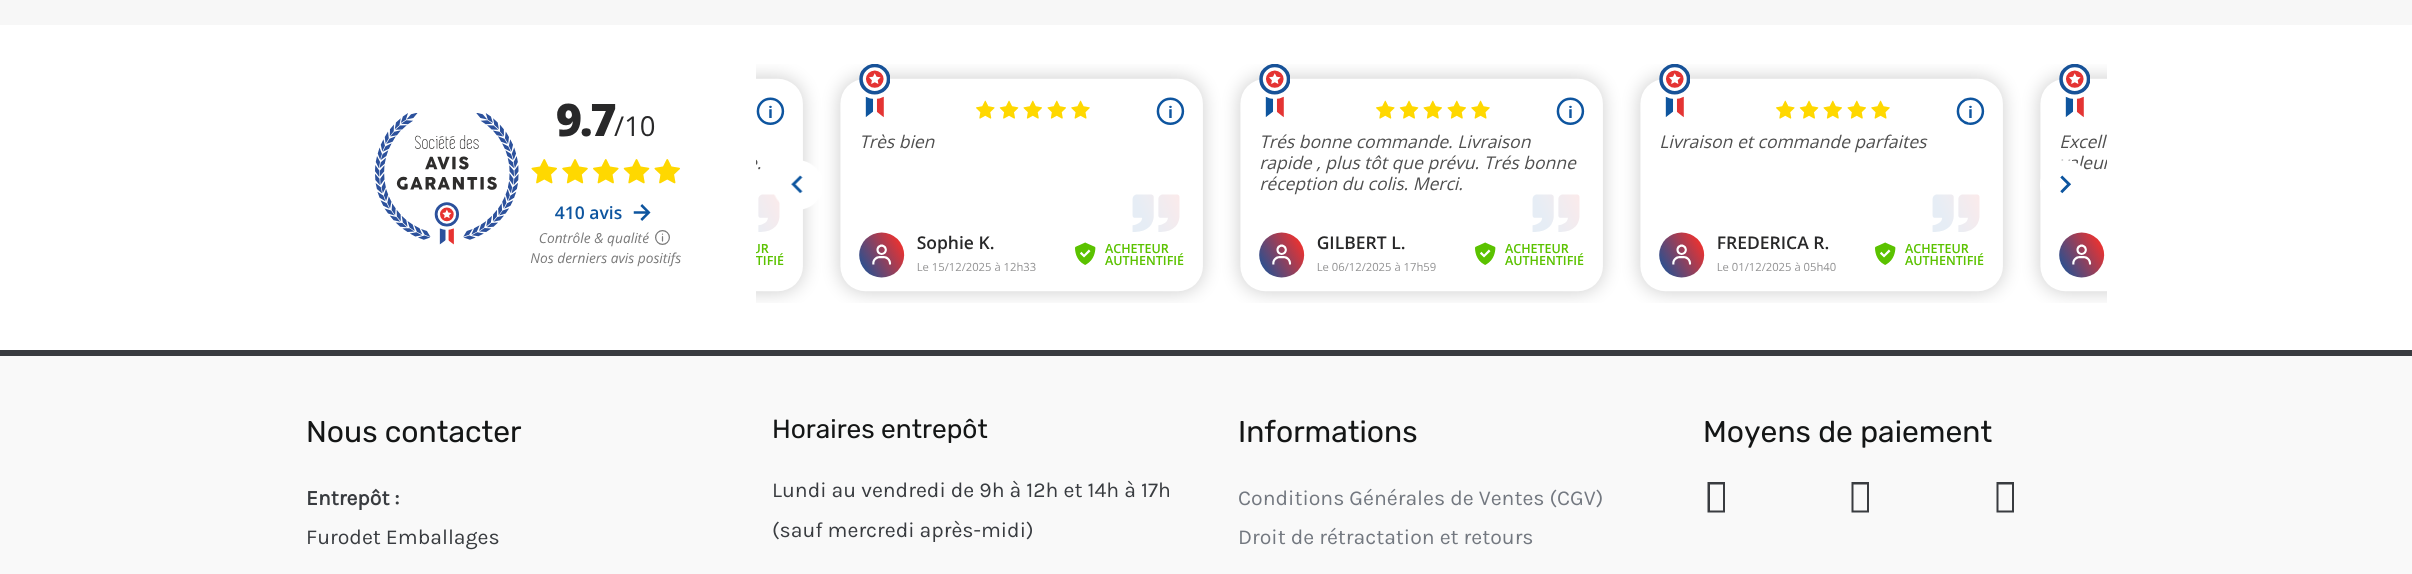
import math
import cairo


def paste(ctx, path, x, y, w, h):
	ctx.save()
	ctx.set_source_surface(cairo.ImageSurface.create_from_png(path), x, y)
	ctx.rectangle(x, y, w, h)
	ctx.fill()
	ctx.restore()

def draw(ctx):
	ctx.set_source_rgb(0.965, 0.965, 0.965)
	ctx.paint()
	ctx.set_source_rgb(1, 1, 1)
	ctx.rectangle(0, 25, 2412, 325)
	ctx.fill()
	paste(ctx, 'media/1.png', 375, 64, 1732, 239)
	ctx.set_source_rgb(0.976, 0.976, 0.976)
	ctx.rectangle(0, 356, 2412, 218)
	ctx.fill()
	ctx.set_source_rgb(0.224, 0.235, 0.251)
	ctx.rectangle(0, 350, 2412, 6)
	ctx.fill()
	ctx.select_font_face('Rubik')
	ctx.set_font_size(30)
	ctx.set_source_rgb(0.082, 0.086, 0.086)
	ctx.move_to(306, 442)
	ctx.show_text('Nous contacter')
	ctx.select_font_face('Karla', cairo.FONT_SLANT_NORMAL, cairo.FONT_WEIGHT_BOLD)
	ctx.set_font_size(21.25)
	ctx.set_source_rgb(0.224, 0.235, 0.251)
	ctx.move_to(306, 505)
	ctx.show_text('Entrepôt :')
	ctx.select_font_face('Karla')
	ctx.move_to(306, 544)
	ctx.show_text('Furodet Emballages')
	ctx.select_font_face('Rubik')
	ctx.set_font_size(26.25)
	ctx.set_source_rgb(0.082, 0.086, 0.086)
	ctx.move_to(772, 438)
	ctx.show_text('Horaires entrepôt')
	ctx.select_font_face('Karla')
	ctx.set_font_size(21.25)
	ctx.set_source_rgb(0.224, 0.235, 0.251)
	ctx.move_to(772, 497)
	ctx.show_text('Lundi au vendredi de 9h à 12h et 14h à 17h')
	ctx.move_to(772, 537)
	ctx.show_text('(sauf mercredi après-midi)')
	ctx.select_font_face('Rubik')
	ctx.set_font_size(30)
	ctx.set_source_rgb(0.082, 0.086, 0.086)
	ctx.move_to(1238, 442)
	ctx.show_text('Informations')
	ctx.select_font_face('Karla')
	ctx.set_font_size(21.25)
	ctx.set_source_rgb(0.451, 0.471, 0.502)
	ctx.move_to(1238, 505)
	ctx.show_text('Conditions Générales de Ventes (CGV)')
	ctx.move_to(1238, 544)
	ctx.show_text('Droit de rétractation et retours')
	ctx.select_font_face('Rubik')
	ctx.set_font_size(30)
	ctx.set_source_rgb(0.082, 0.086, 0.086)
	ctx.move_to(1703, 442)
	ctx.show_text('Moyens de paiement')
	ctx.set_source_rgb(0.224, 0.235, 0.251)
	ctx.new_path()
	ctx.move_to(1707.5, 512.5)
	ctx.line_to(1707.5, 482)
	ctx.line_to(1725, 482)
	ctx.line_to(1725, 512.5)
	ctx.close_path()
	ctx.move_to(1710, 510.5)
	ctx.line_to(1723, 510.5)
	ctx.line_to(1723, 484.5)
	ctx.line_to(1710, 484.5)
	ctx.close_path()
	ctx.fill()
	ctx.new_path()
	ctx.move_to(1851.5, 512.5)
	ctx.line_to(1851.5, 482)
	ctx.line_to(1869, 482)
	ctx.line_to(1869, 512.5)
	ctx.close_path()
	ctx.move_to(1853.5, 510.5)
	ctx.line_to(1867, 510.5)
	ctx.line_to(1867, 484.5)
	ctx.line_to(1853.5, 484.5)
	ctx.close_path()
	ctx.fill()
	ctx.new_path()
	ctx.move_to(1996.5, 512.5)
	ctx.line_to(1996.5, 482)
	ctx.line_to(2014, 482)
	ctx.line_to(2014, 512.5)
	ctx.close_path()
	ctx.move_to(1998.5, 510.5)
	ctx.line_to(2012, 510.5)
	ctx.line_to(2012, 484.5)
	ctx.line_to(1998.5, 484.5)
	ctx.close_path()
	ctx.fill()


surface = cairo.ImageSurface(cairo.FORMAT_RGB24, 2412, 574)
ctx = cairo.Context(surface)
options = cairo.FontOptions()
options.set_hint_metrics(cairo.HINT_METRICS_OFF)
options.set_hint_style(cairo.HINT_STYLE_NONE)
ctx.set_font_options(options)
ctx.set_miter_limit(4)
draw(ctx)
surface.write_to_png('image.png')
